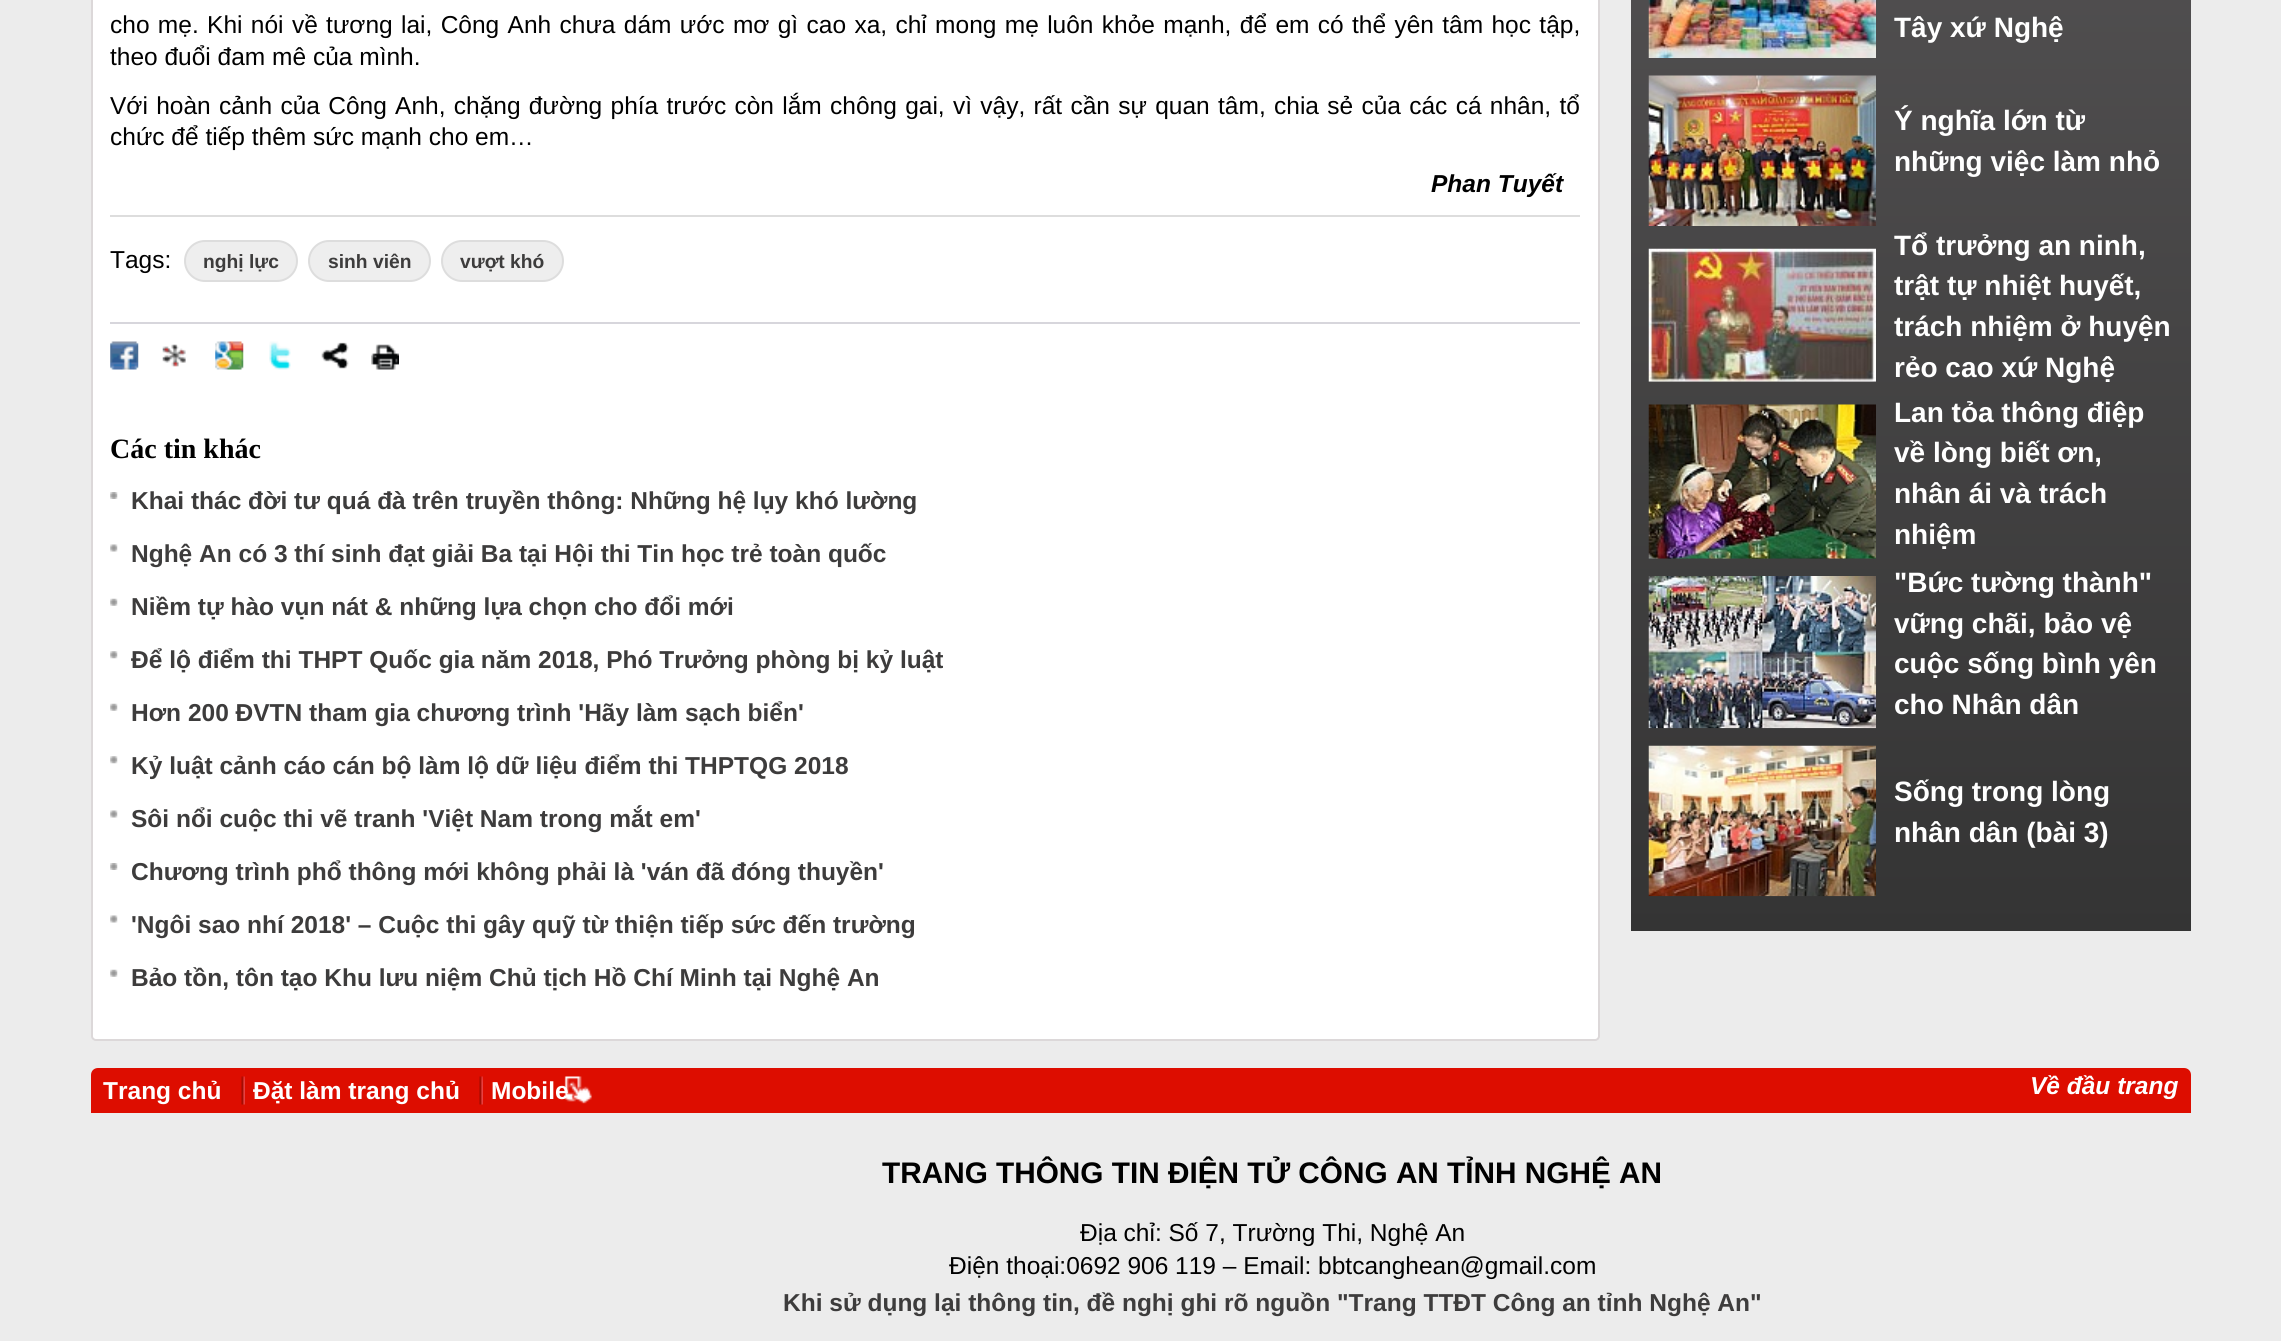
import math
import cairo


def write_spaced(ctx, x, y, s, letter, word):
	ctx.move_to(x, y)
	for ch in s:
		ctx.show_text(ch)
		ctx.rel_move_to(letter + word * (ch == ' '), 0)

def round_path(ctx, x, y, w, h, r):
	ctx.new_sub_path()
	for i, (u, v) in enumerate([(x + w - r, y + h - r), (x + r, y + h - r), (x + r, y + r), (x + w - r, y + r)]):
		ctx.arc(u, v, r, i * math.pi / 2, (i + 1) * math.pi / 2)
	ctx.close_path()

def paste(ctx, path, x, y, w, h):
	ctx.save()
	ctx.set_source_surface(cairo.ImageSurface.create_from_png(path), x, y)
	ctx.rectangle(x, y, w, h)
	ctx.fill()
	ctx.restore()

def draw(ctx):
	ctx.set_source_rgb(0.925, 0.925, 0.925)
	ctx.paint()
	ctx.set_source_rgb(1, 1, 1)
	round_path(ctx, 92, -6, 1507, 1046, 4)
	ctx.fill_preserve()
	ctx.set_source_rgb(0.863, 0.847, 0.851)
	ctx.stroke()
	ctx.select_font_face('Liberation Sans')
	ctx.set_font_size(24.5)
	ctx.set_source_rgb(0, 0, 0)
	write_spaced(ctx, 110, 33, 'cho mẹ. Khi nói về tương lai, Công Anh chưa dám ước mơ gì cao xa, chỉ mong mẹ luôn khỏe mạnh, để em có thể yên tâm học tập,', 0, 1.55)
	ctx.move_to(110, 65)
	ctx.show_text('theo đuổi đam mê của mình.')
	write_spaced(ctx, 110, 114, 'Với hoàn cảnh của Công Anh, chặng đường phía trước còn lắm chông gai, vì vậy, rất cần sự quan tâm, chia sẻ của các cá nhân, tổ', 0, 1.5)
	ctx.move_to(110, 145)
	ctx.show_text('chức để tiếp thêm sức mạnh cho em…')
	ctx.select_font_face('Liberation Sans', cairo.FONT_SLANT_ITALIC, cairo.FONT_WEIGHT_BOLD)
	ctx.move_to(1431, 192)
	ctx.show_text('Phan Tuyết')
	ctx.set_source_rgb(0.867, 0.867, 0.867)
	ctx.rectangle(110, 215, 1470, 2)
	ctx.fill()
	ctx.select_font_face('Liberation Sans')
	ctx.set_source_rgb(0, 0, 0)
	ctx.move_to(110, 268)
	ctx.show_text('Tags:')
	ctx.set_source_rgb(0.933, 0.933, 0.933)
	round_path(ctx, 185, 241, 112, 40, 20)
	ctx.fill_preserve()
	ctx.set_source_rgb(0.867, 0.867, 0.867)
	ctx.stroke()
	ctx.select_font_face('Liberation Sans', cairo.FONT_SLANT_NORMAL, cairo.FONT_WEIGHT_BOLD)
	ctx.set_font_size(19.25)
	ctx.set_source_rgb(0.239, 0.235, 0.235)
	ctx.move_to(203, 268)
	ctx.show_text('nghị lực')
	ctx.set_source_rgb(0.933, 0.933, 0.933)
	round_path(ctx, 309, 241, 121, 40, 20)
	ctx.fill_preserve()
	ctx.set_source_rgb(0.867, 0.867, 0.867)
	ctx.stroke()
	ctx.set_source_rgb(0.239, 0.235, 0.235)
	ctx.move_to(328, 268)
	ctx.show_text('sinh viên')
	ctx.set_source_rgb(0.933, 0.933, 0.933)
	round_path(ctx, 442, 241, 121, 40, 20)
	ctx.fill_preserve()
	ctx.set_source_rgb(0.867, 0.867, 0.867)
	ctx.stroke()
	ctx.set_source_rgb(0.239, 0.235, 0.235)
	ctx.move_to(460, 268)
	ctx.show_text('vượt khó')
	ctx.set_source_rgb(0.843, 0.839, 0.863)
	ctx.rectangle(110, 322, 1470, 2)
	ctx.fill()
	paste(ctx, 'media/1.png', 110, 341, 29, 29)
	paste(ctx, 'media/2.png', 162, 344, 24, 23)
	paste(ctx, 'media/3.png', 215, 341, 29, 29)
	paste(ctx, 'media/4.png', 269, 341, 22, 29)
	paste(ctx, 'media/5.png', 321, 342, 28, 27)
	paste(ctx, 'media/6.png', 371, 344, 28, 26)
	ctx.select_font_face('Liberation Serif', cairo.FONT_SLANT_NORMAL, cairo.FONT_WEIGHT_BOLD)
	ctx.set_font_size(28)
	ctx.set_source_rgb(0, 0, 0)
	ctx.move_to(110, 458)
	ctx.show_text('Các tin khác')
	paste(ctx, 'media/7.png', 110, 492, 8, 7)
	ctx.select_font_face('Liberation Sans', cairo.FONT_SLANT_NORMAL, cairo.FONT_WEIGHT_BOLD)
	ctx.set_font_size(24.5)
	ctx.set_source_rgb(0.239, 0.235, 0.235)
	ctx.move_to(131, 509)
	ctx.show_text('Khai thác đời tư quá đà trên truyền thông: Những hệ lụy khó lường')
	paste(ctx, 'media/8.png', 110, 544, 8, 8)
	ctx.move_to(131, 562)
	ctx.show_text('Nghệ An có 3 thí sinh đạt giải Ba tại Hội thi Tin học trẻ toàn quốc')
	paste(ctx, 'media/9.png', 110, 598, 8, 8)
	ctx.move_to(131, 615)
	ctx.show_text('Niềm tự hào vụn nát & những lựa chọn cho đổi mới')
	paste(ctx, 'media/10.png', 110, 651, 8, 8)
	ctx.move_to(131, 668)
	ctx.show_text('Để lộ điểm thi THPT Quốc gia năm 2018, Phó Trưởng phòng bị kỷ luật')
	paste(ctx, 'media/9.png', 110, 703, 8, 8)
	ctx.move_to(131, 721)
	ctx.show_text('Hơn 200 ĐVTN tham gia chương trình \'Hãy làm sạch biển\'')
	paste(ctx, 'media/10.png', 110, 756, 8, 8)
	ctx.move_to(131, 774)
	ctx.show_text('Kỷ luật cảnh cáo cán bộ làm lộ dữ liệu điểm thi THPTQG 2018')
	paste(ctx, 'media/8.png', 110, 810, 8, 8)
	ctx.move_to(131, 827)
	ctx.show_text('Sôi nổi cuộc thi vẽ tranh \'Việt Nam trong mắt em\'')
	paste(ctx, 'media/7.png', 110, 863, 8, 7)
	ctx.move_to(131, 880)
	ctx.show_text('Chương trình phổ thông mới không phải là \'ván đã đóng thuyền\'')
	paste(ctx, 'media/8.png', 110, 915, 8, 8)
	ctx.move_to(131, 933)
	ctx.show_text('\'Ngôi sao nhí 2018\' – Cuộc thi gây quỹ từ thiện tiếp sức đến trường')
	paste(ctx, 'media/9.png', 110, 969, 8, 8)
	ctx.move_to(131, 986)
	ctx.show_text('Bảo tồn, tôn tạo Khu lưu niệm Chủ tịch Hồ Chí Minh tại Nghệ An')
	gradient = cairo.LinearGradient(1911, -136, 1911, 931)
	gradient.add_color_stop_rgba(0, 0.325, 0.318, 0.322, 1)
	gradient.add_color_stop_rgba(1, 0.204, 0.204, 0.204, 1)
	ctx.set_source(gradient)
	ctx.rectangle(1631, 0, 560, 931)
	ctx.fill()
	paste(ctx, 'media/11.png', 1648, 0, 228, 58)
	ctx.set_font_size(28)
	ctx.set_source_rgb(1, 1, 1)
	ctx.move_to(1894, 37)
	ctx.show_text('Tây xứ Nghệ')
	paste(ctx, 'media/12.png', 1648, 75, 228, 151)
	ctx.move_to(1894, 130)
	ctx.show_text('Ý nghĩa lớn từ')
	ctx.move_to(1894, 171)
	ctx.show_text('những việc làm nhỏ')
	paste(ctx, 'media/13.png', 1648, 248, 228, 134)
	for x, y, s in [
		(1894, 255, 'Tổ trưởng an ninh,'),
		(1894, 295, 'trật tự nhiệt huyết,'),
		(1894, 336, 'trách nhiệm ở huyện'),
		(1894, 377, 'rẻo cao xứ Nghệ'),
	]:
		ctx.move_to(x, y)
		ctx.show_text(s)
	paste(ctx, 'media/14.png', 1648, 404, 228, 155)
	for x, y, s in [
		(1894, 422, 'Lan tỏa thông điệp'),
		(1894, 462, 'về lòng biết ơn,'),
		(1894, 503, 'nhân ái và trách'),
		(1894, 544, 'nhiệm'),
	]:
		ctx.move_to(x, y)
		ctx.show_text(s)
	paste(ctx, 'media/15.png', 1648, 576, 228, 153)
	for x, y, s in [
		(1894, 592, '"Bức tường thành"'),
		(1894, 633, 'vững chãi, bảo vệ'),
		(1894, 673, 'cuộc sống bình yên'),
		(1894, 714, 'cho Nhân dân'),
	]:
		ctx.move_to(x, y)
		ctx.show_text(s)
	paste(ctx, 'media/16.png', 1648, 745, 228, 152)
	ctx.move_to(1894, 801)
	ctx.show_text('Sống trong lòng')
	ctx.move_to(1894, 842)
	ctx.show_text('nhân dân (bài 3)')
	ctx.set_source_rgb(0.867, 0.051, 0)
	ctx.new_path()
	ctx.move_to(98, 1068)
	ctx.line_to(2184, 1068)
	ctx.curve_to(2188, 1068, 2191, 1071, 2191, 1075)
	ctx.line_to(2191, 1113)
	ctx.line_to(91, 1113)
	ctx.line_to(91, 1075)
	ctx.curve_to(91, 1071, 94, 1068, 98, 1068)
	ctx.close_path()
	ctx.fill()
	ctx.set_font_size(24.5)
	ctx.set_source_rgb(1, 1, 1)
	ctx.move_to(103, 1099)
	ctx.show_text('Trang chủ')
	paste(ctx, 'media/17.png', 241, 1076, 4, 29)
	ctx.move_to(253, 1099)
	ctx.show_text('Đặt làm trang chủ')
	paste(ctx, 'media/17.png', 479, 1076, 4, 29)
	paste(ctx, 'media/18.png', 564, 1076, 28, 28)
	ctx.move_to(491, 1099)
	ctx.show_text('Mobile')
	ctx.select_font_face('Liberation Sans', cairo.FONT_SLANT_ITALIC, cairo.FONT_WEIGHT_BOLD)
	ctx.move_to(2030, 1094)
	ctx.show_text('Về đầu trang')
	ctx.select_font_face('Liberation Sans', cairo.FONT_SLANT_NORMAL, cairo.FONT_WEIGHT_BOLD)
	ctx.set_font_size(29.75)
	ctx.set_source_rgb(0, 0, 0)
	ctx.move_to(882, 1183)
	ctx.show_text('TRANG THÔNG TIN ĐIỆN TỬ CÔNG AN TỈNH NGHỆ AN')
	ctx.select_font_face('Liberation Sans')
	ctx.set_font_size(24.5)
	ctx.move_to(1080, 1241)
	ctx.show_text('Địa chỉ: Số 7, Trường Thi, Nghệ An')
	ctx.move_to(949, 1274)
	ctx.show_text('Điện thoại:0692 906 119 – Email: bbtcanghean@gmail.com')
	ctx.select_font_face('Liberation Sans', cairo.FONT_SLANT_NORMAL, cairo.FONT_WEIGHT_BOLD)
	ctx.set_source_rgb(0.239, 0.235, 0.235)
	ctx.move_to(783, 1311)
	ctx.show_text('Khi sử dụng lại thông tin, đề nghị ghi rõ nguồn "Trang TTĐT Công an tỉnh Nghệ An"')


surface = cairo.ImageSurface(cairo.FORMAT_RGB24, 2281, 1341)
ctx = cairo.Context(surface)
options = cairo.FontOptions()
options.set_hint_metrics(cairo.HINT_METRICS_OFF)
options.set_hint_style(cairo.HINT_STYLE_NONE)
ctx.set_font_options(options)
ctx.set_miter_limit(4)
draw(ctx)
surface.write_to_png('image.png')
